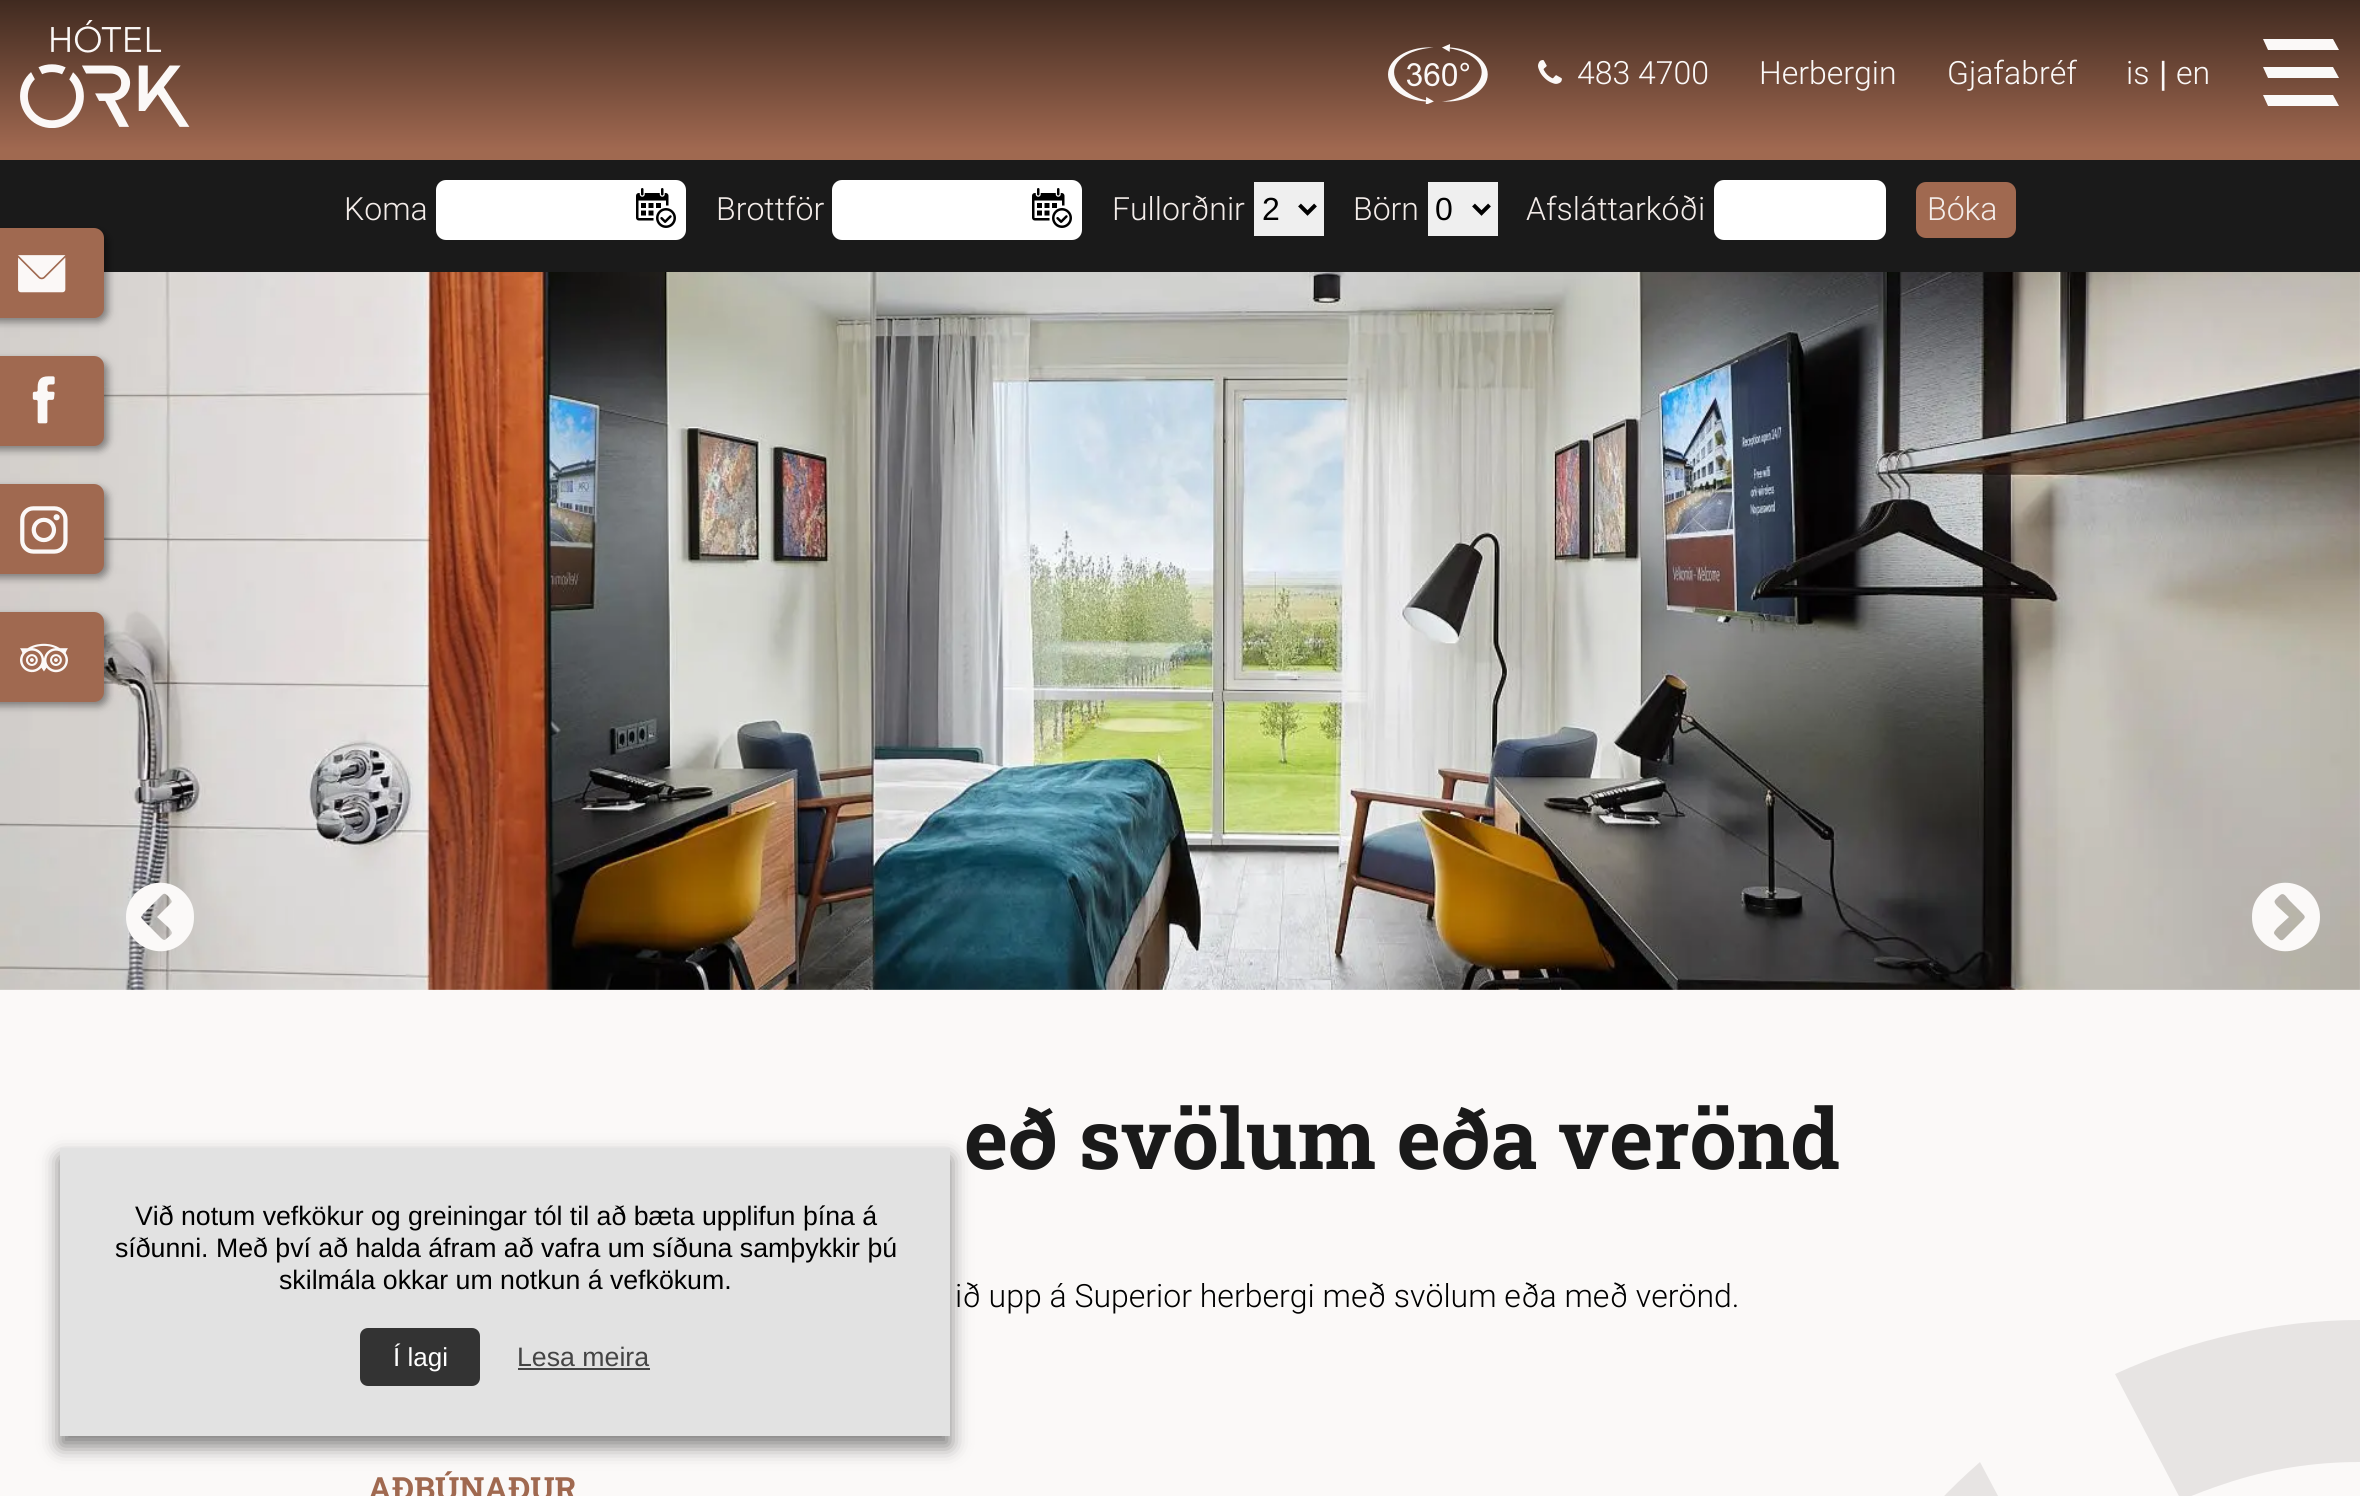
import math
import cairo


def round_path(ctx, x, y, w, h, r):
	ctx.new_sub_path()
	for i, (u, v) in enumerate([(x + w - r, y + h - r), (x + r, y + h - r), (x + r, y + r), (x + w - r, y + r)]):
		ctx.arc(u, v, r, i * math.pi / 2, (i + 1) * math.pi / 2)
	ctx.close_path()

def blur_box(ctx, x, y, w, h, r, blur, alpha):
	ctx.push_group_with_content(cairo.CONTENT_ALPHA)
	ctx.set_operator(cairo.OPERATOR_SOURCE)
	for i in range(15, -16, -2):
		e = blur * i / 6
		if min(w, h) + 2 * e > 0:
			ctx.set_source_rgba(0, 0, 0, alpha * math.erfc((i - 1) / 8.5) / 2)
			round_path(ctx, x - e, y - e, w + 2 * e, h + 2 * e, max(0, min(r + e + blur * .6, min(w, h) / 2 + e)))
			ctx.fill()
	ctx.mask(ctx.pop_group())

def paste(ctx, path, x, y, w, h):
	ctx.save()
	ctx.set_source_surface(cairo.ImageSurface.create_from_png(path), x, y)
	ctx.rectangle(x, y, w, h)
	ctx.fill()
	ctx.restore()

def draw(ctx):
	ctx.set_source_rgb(0.984, 0.973, 0.969)
	ctx.paint()
	gradient = cairo.LinearGradient(1180, 0, 1180, 148)
	gradient.add_color_stop_rgba(0, 0.251, 0.165, 0.125, 1)
	gradient.add_color_stop_rgba(1, 0.627, 0.408, 0.314, 1)
	ctx.set_source(gradient)
	ctx.rectangle(0, 0, 2360, 148)
	ctx.fill()
	paste(ctx, 'media/1.png', 20, 20, 170, 108)
	paste(ctx, 'media/2.png', 1388, 44, 100, 60)
	paste(ctx, 'media/3.png', 1538, 60, 24, 24)
	ctx.select_font_face('Roboto Light')
	ctx.set_font_size(32)
	ctx.set_source_rgb(0.984, 0.973, 0.969)
	for x, y, s in [
		(1577, 84, '483 4700'),
		(1759, 84, 'Herbergin'),
		(1947, 84, 'Gjafabréf'),
		(2126, 84, 'is'),
	]:
		ctx.move_to(x, y)
		ctx.show_text(s)
	ctx.select_font_face('Liberation Sans')
	ctx.move_to(2159, 84)
	ctx.show_text('|')
	ctx.select_font_face('Roboto Light')
	ctx.move_to(2176, 84)
	ctx.show_text('en')
	ctx.set_fill_rule(cairo.FILL_RULE_EVEN_ODD)
	ctx.new_path()
	ctx.move_to(2333, 39)
	ctx.line_to(2263, 39)
	ctx.line_to(2268, 50)
	ctx.line_to(2339, 50)
	ctx.close_path()
	ctx.fill()
	ctx.new_path()
	ctx.move_to(2333, 67)
	ctx.line_to(2263, 67)
	ctx.line_to(2268, 78)
	ctx.line_to(2339, 78)
	ctx.close_path()
	ctx.fill()
	ctx.new_path()
	ctx.move_to(2333, 95)
	ctx.line_to(2263, 95)
	ctx.line_to(2268, 106)
	ctx.line_to(2339, 106)
	ctx.close_path()
	ctx.fill()
	ctx.set_source_rgb(0.102, 0.102, 0.102)
	ctx.rectangle(0, 160, 2360, 112)
	ctx.fill()
	ctx.set_source_rgb(0.953, 0.925, 0.914)
	ctx.move_to(344, 220)
	ctx.show_text('Koma')
	ctx.set_source_rgb(1, 1, 1)
	round_path(ctx, 436, 180, 250, 60, 10)
	ctx.fill()
	paste(ctx, 'media/4.png', 636, 188, 40, 40)
	ctx.set_source_rgb(0.953, 0.925, 0.914)
	ctx.move_to(716, 220)
	ctx.show_text('Brottför')
	ctx.set_source_rgb(1, 1, 1)
	round_path(ctx, 832, 180, 250, 60, 10)
	ctx.fill()
	paste(ctx, 'media/4.png', 1032, 188, 40, 40)
	ctx.set_source_rgb(0.953, 0.925, 0.914)
	ctx.move_to(1112, 220)
	ctx.show_text('Fullorðnir')
	ctx.set_source_rgb(0.937, 0.937, 0.937)
	ctx.rectangle(1254, 182, 70, 54)
	ctx.fill()
	ctx.new_path()
	ctx.move_to(1299.5, 205)
	ctx.line_to(1307.5, 213)
	ctx.line_to(1315.5, 205)
	ctx.set_source_rgb(0, 0, 0)
	ctx.set_line_width(4)
	ctx.stroke()
	ctx.select_font_face('Liberation Sans')
	ctx.move_to(1262, 220)
	ctx.show_text('2')
	ctx.select_font_face('Roboto Light')
	ctx.set_source_rgb(0.953, 0.925, 0.914)
	ctx.move_to(1353, 220)
	ctx.show_text('Börn')
	ctx.set_source_rgb(0.937, 0.937, 0.937)
	ctx.rectangle(1428, 182, 70, 54)
	ctx.fill()
	ctx.new_path()
	ctx.move_to(1473.5, 205)
	ctx.line_to(1481.5, 213)
	ctx.line_to(1489.5, 205)
	ctx.set_source_rgb(0, 0, 0)
	ctx.stroke()
	ctx.select_font_face('Liberation Sans')
	ctx.move_to(1435, 220)
	ctx.show_text('0')
	ctx.select_font_face('Roboto Light')
	ctx.set_source_rgb(0.953, 0.925, 0.914)
	ctx.move_to(1526, 220)
	ctx.show_text('Afsláttarkóði')
	ctx.set_source_rgb(1, 1, 1)
	round_path(ctx, 1714, 180, 172, 60, 10)
	ctx.fill()
	ctx.set_source_rgb(0.627, 0.412, 0.314)
	round_path(ctx, 1916, 182, 100, 56, 10)
	ctx.fill()
	ctx.set_source_rgb(0.953, 0.925, 0.914)
	ctx.move_to(1927, 220)
	ctx.show_text('Bóka')
	paste(ctx, 'media/9.png', 0, 272, 2360, 718)
	ctx.set_source_rgb(0, 0, 0)
	blur_box(ctx, -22, 232, 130, 90, 10, 4, 0.4)
	ctx.set_source_rgb(0.627, 0.412, 0.314)
	round_path(ctx, -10, 228, 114, 90, 10)
	ctx.fill()
	paste(ctx, 'media/5.png', 18, 255, 48, 38)
	ctx.set_source_rgb(0, 0, 0)
	blur_box(ctx, -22, 360, 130, 90, 10, 4, 0.4)
	ctx.set_source_rgb(0.627, 0.412, 0.314)
	round_path(ctx, -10, 356, 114, 90, 10)
	ctx.fill()
	paste(ctx, 'media/6.png', 32, 376, 23, 48)
	ctx.set_source_rgb(0, 0, 0)
	blur_box(ctx, -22, 488, 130, 90, 10, 4, 0.4)
	ctx.set_source_rgb(0.627, 0.412, 0.314)
	round_path(ctx, -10, 484, 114, 90, 10)
	ctx.fill()
	paste(ctx, 'media/7.png', 20, 506, 48, 48)
	ctx.set_source_rgb(0, 0, 0)
	blur_box(ctx, -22, 616, 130, 90, 10, 4, 0.4)
	ctx.set_source_rgb(0.627, 0.412, 0.314)
	round_path(ctx, -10, 612, 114, 90, 10)
	ctx.fill()
	paste(ctx, 'media/8.png', 20, 643, 48, 30)
	ctx.rectangle(0, 148, 2360, 12)
	ctx.fill()
	ctx.set_source_rgb(0.984, 0.973, 0.969)
	ctx.set_fill_rule(cairo.FILL_RULE_WINDING)
	ctx.new_path()
	ctx.move_to(166, 939)
	ctx.curve_to(164, 942, 160, 937, 159, 936)
	ctx.line_to(145, 922)
	ctx.curve_to(140, 917, 140, 917, 145, 912)
	ctx.line_to(159, 898)
	ctx.curve_to(164, 893, 164, 892, 169, 897)
	ctx.curve_to(170, 899, 173, 901, 171, 903)
	ctx.line_to(157, 917)
	ctx.line_to(169, 928)
	ctx.curve_to(174, 934, 172, 934, 166, 939)
	ctx.close_path()
	ctx.move_to(194, 917)
	ctx.curve_to(194, 909, 192, 902, 187, 896)
	ctx.curve_to(167, 870, 126, 885, 126, 917)
	ctx.curve_to(126, 949, 167, 964, 187, 938)
	ctx.curve_to(192, 932, 194, 925, 194, 917)
	ctx.close_path()
	ctx.fill()
	ctx.new_path()
	ctx.move_to(2284, 939)
	ctx.curve_to(2281, 942, 2279, 939, 2277, 937)
	ctx.curve_to(2273, 933, 2273, 933, 2277, 928)
	ctx.line_to(2289, 917)
	ctx.line_to(2277, 906)
	ctx.curve_to(2273, 901, 2274, 901, 2279, 896)
	ctx.curve_to(2284, 891, 2286, 897, 2290, 901)
	ctx.line_to(2301, 912)
	ctx.curve_to(2306, 917, 2306, 917, 2301, 922)
	ctx.close_path()
	ctx.move_to(2320, 917)
	ctx.curve_to(2320, 885, 2279, 870, 2259, 896)
	ctx.curve_to(2254, 902, 2252, 909, 2252, 917)
	ctx.curve_to(2252, 925, 2254, 932, 2259, 938)
	ctx.curve_to(2279, 964, 2320, 949, 2320, 917)
	ctx.close_path()
	ctx.fill()
	ctx.select_font_face('Roboto Slab', cairo.FONT_SLANT_NORMAL, cairo.FONT_WEIGHT_BOLD)
	ctx.set_font_size(83.75)
	ctx.set_source_rgb(0.102, 0.102, 0.102)
	ctx.move_to(964, 1169)
	ctx.show_text('eð svölum eða verönd')
	ctx.select_font_face('Roboto Light')
	ctx.set_font_size(32)
	ctx.set_source_rgb(0, 0, 0)
	ctx.move_to(955, 1307)
	ctx.show_text('ið upp á Superior herbergi með svölum eða með verönd.')
	ctx.select_font_face('Roboto Slab', cairo.FONT_SLANT_NORMAL, cairo.FONT_WEIGHT_BOLD)
	ctx.set_source_rgb(0.627, 0.412, 0.314)
	ctx.move_to(368, 1500)
	ctx.show_text('AÐBÚNAÐUR')
	ctx.set_source_rgb(0.906, 0.894, 0.89)
	ctx.set_fill_rule(cairo.FILL_RULE_EVEN_ODD)
	ctx.new_path()
	ctx.move_to(2360, 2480)
	ctx.curve_to(2040, 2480, 1780, 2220, 1780, 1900)
	ctx.curve_to(1780, 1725, 1858, 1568, 1980, 1462)
	ctx.line_to(2049, 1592)
	ctx.curve_to(1858, 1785, 1885, 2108, 2115, 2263)
	ctx.curve_to(2187, 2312, 2273, 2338, 2360, 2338)
	ctx.close_path()
	ctx.fill()
	ctx.new_path()
	ctx.move_to(2360, 1320)
	ctx.line_to(2360, 1462)
	ctx.curve_to(2314, 1462, 2268, 1469, 2224, 1484)
	ctx.curve_to(2209, 1489, 2196, 1494, 2181, 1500)
	ctx.line_to(2115, 1374)
	ctx.curve_to(2192, 1339, 2276, 1320, 2360, 1320)
	ctx.close_path()
	ctx.fill()
	ctx.set_source_rgb(0, 0, 0)
	blur_box(ctx, 60, 1158, 890, 288, 0, 10, 0.5)
	ctx.set_source_rgb(0.886, 0.886, 0.886)
	ctx.rectangle(60, 1148, 890, 288)
	ctx.fill()
	ctx.select_font_face('Liberation Sans')
	ctx.set_font_size(26.7)
	ctx.set_source_rgb(0, 0, 0)
	for x, y, s in [
		(135, 1225, 'Við notum vefkökur og greiningar tól til að bæta upplifun þína á'),
		(115, 1257, 'síðunni. Með því að halda áfram að vafra um síðuna samþykkir þú'),
		(279, 1289, 'skilmála okkar um notkun á vefkökum.'),
	]:
		ctx.move_to(x, y)
		ctx.show_text(s)
	ctx.set_source_rgb(0.2, 0.2, 0.2)
	round_path(ctx, 360, 1328, 120, 58, 8)
	ctx.fill()
	ctx.set_font_size(26)
	ctx.set_source_rgb(1, 1, 1)
	ctx.move_to(393, 1366)
	ctx.show_text('Í lagi')
	ctx.set_font_size(26.7)
	ctx.set_source_rgb(0.267, 0.267, 0.267)
	ctx.move_to(517, 1366)
	ctx.show_text('Lesa meira')
	ctx.rectangle(518, 1368, 132, 2)
	ctx.fill()


surface = cairo.ImageSurface(cairo.FORMAT_RGB24, 2360, 1496)
ctx = cairo.Context(surface)
options = cairo.FontOptions()
options.set_hint_metrics(cairo.HINT_METRICS_OFF)
options.set_hint_style(cairo.HINT_STYLE_NONE)
ctx.set_font_options(options)
ctx.set_miter_limit(4)
draw(ctx)
surface.write_to_png('image.png')
